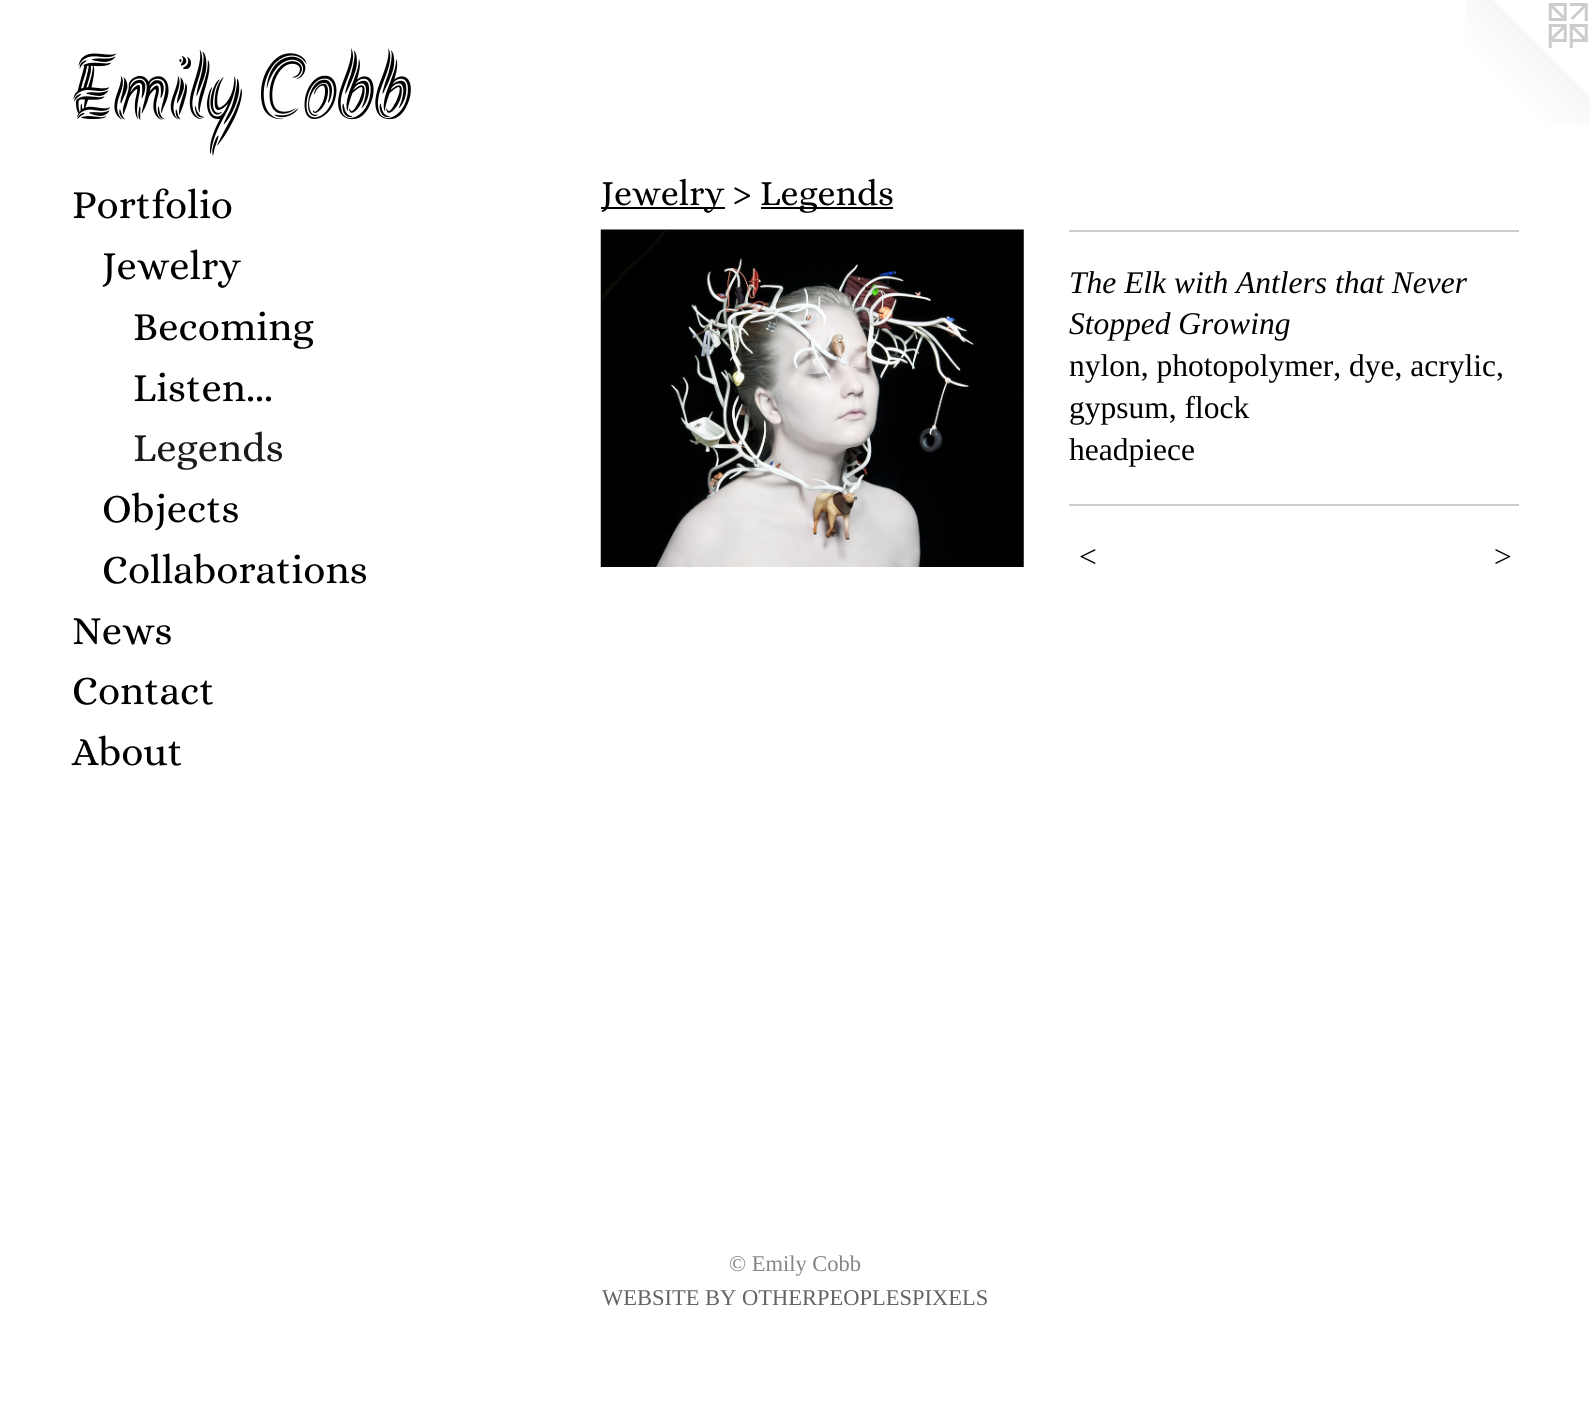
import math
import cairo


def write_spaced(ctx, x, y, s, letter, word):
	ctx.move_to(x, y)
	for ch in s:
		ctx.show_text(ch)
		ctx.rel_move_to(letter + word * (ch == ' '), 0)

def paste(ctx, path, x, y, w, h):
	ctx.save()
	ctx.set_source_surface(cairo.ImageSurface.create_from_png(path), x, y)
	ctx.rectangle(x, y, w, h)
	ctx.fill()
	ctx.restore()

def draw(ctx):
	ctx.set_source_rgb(1, 1, 1)
	ctx.paint()
	ctx.select_font_face('Akronim')
	ctx.set_font_size(90)
	ctx.set_source_rgb(0, 0, 0)
	ctx.move_to(72, 119)
	ctx.show_text('Emily Cobb')
	paste(ctx, 'media/1.png', 1465, 0, 125, 125)
	ctx.select_font_face('Alice')
	ctx.set_font_size(40.5)
	for x, y, s in [
		(72, 218, 'Portfolio'),
		(102, 279, 'Jewelry'),
		(133, 340, 'Becoming'),
		(133, 401, 'Listen...'),
	]:
		ctx.move_to(x, y)
		ctx.show_text(s)
	ctx.set_source_rgb(0.102, 0.102, 0.102)
	ctx.move_to(133, 461)
	ctx.show_text('Legends')
	ctx.set_source_rgb(0, 0, 0)
	for x, y, s in [
		(102, 522, 'Objects'),
		(102, 583, 'Collaborations'),
		(72, 644, 'News'),
		(72, 704, 'Contact'),
		(72, 765, 'About'),
	]:
		ctx.move_to(x, y)
		ctx.show_text(s)
	ctx.rectangle(601, 207, 124, 2)
	ctx.fill()
	ctx.set_font_size(36)
	ctx.move_to(601, 205)
	ctx.show_text('Jewelry >')
	ctx.rectangle(761, 207, 132, 2)
	ctx.fill()
	ctx.move_to(760, 205)
	ctx.show_text('Legends')
	paste(ctx, 'media/2.png', 600, 229, 424, 338)
	ctx.set_source_rgb(0.8, 0.8, 0.8)
	ctx.rectangle(1069, 230, 450, 2)
	ctx.fill()
	ctx.select_font_face('Liberation Serif', cairo.FONT_SLANT_ITALIC)
	ctx.set_font_size(31.5)
	ctx.set_source_rgb(0, 0, 0)
	ctx.move_to(1069, 293)
	ctx.show_text('The Elk with Antlers that Never')
	ctx.move_to(1069, 334)
	ctx.show_text('Stopped Growing')
	ctx.select_font_face('Liberation Serif')
	for x, y, s in [
		(1069, 376, 'nylon, photopolymer, dye, acrylic,'),
		(1069, 418, 'gypsum, flock'),
		(1069, 460, 'headpiece'),
	]:
		ctx.move_to(x, y)
		ctx.show_text(s)
	ctx.set_source_rgb(0.8, 0.8, 0.8)
	ctx.rectangle(1069, 504, 450, 2)
	ctx.fill()
	ctx.select_font_face('Liberation Serif', cairo.FONT_SLANT_ITALIC)
	ctx.set_source_rgb(0, 0, 0)
	write_spaced(ctx, 1077, 567, '<', 2, 0)
	write_spaced(ctx, 1492, 567, '>', 2, 0)
	ctx.select_font_face('Liberation Serif')
	ctx.set_font_size(22.5)
	ctx.set_source_rgb(0.522, 0.522, 0.522)
	ctx.move_to(729, 1271)
	ctx.show_text('© Emily Cobb')
	ctx.set_source_rgb(0.388, 0.388, 0.388)
	ctx.move_to(602, 1305)
	ctx.show_text('WEBSITE BY OTHERPEOPLESPIXELS')


surface = cairo.ImageSurface(cairo.FORMAT_RGB24, 1590, 1426)
ctx = cairo.Context(surface)
options = cairo.FontOptions()
options.set_hint_metrics(cairo.HINT_METRICS_OFF)
options.set_hint_style(cairo.HINT_STYLE_NONE)
ctx.set_font_options(options)
ctx.set_miter_limit(4)
draw(ctx)
surface.write_to_png('image.png')
